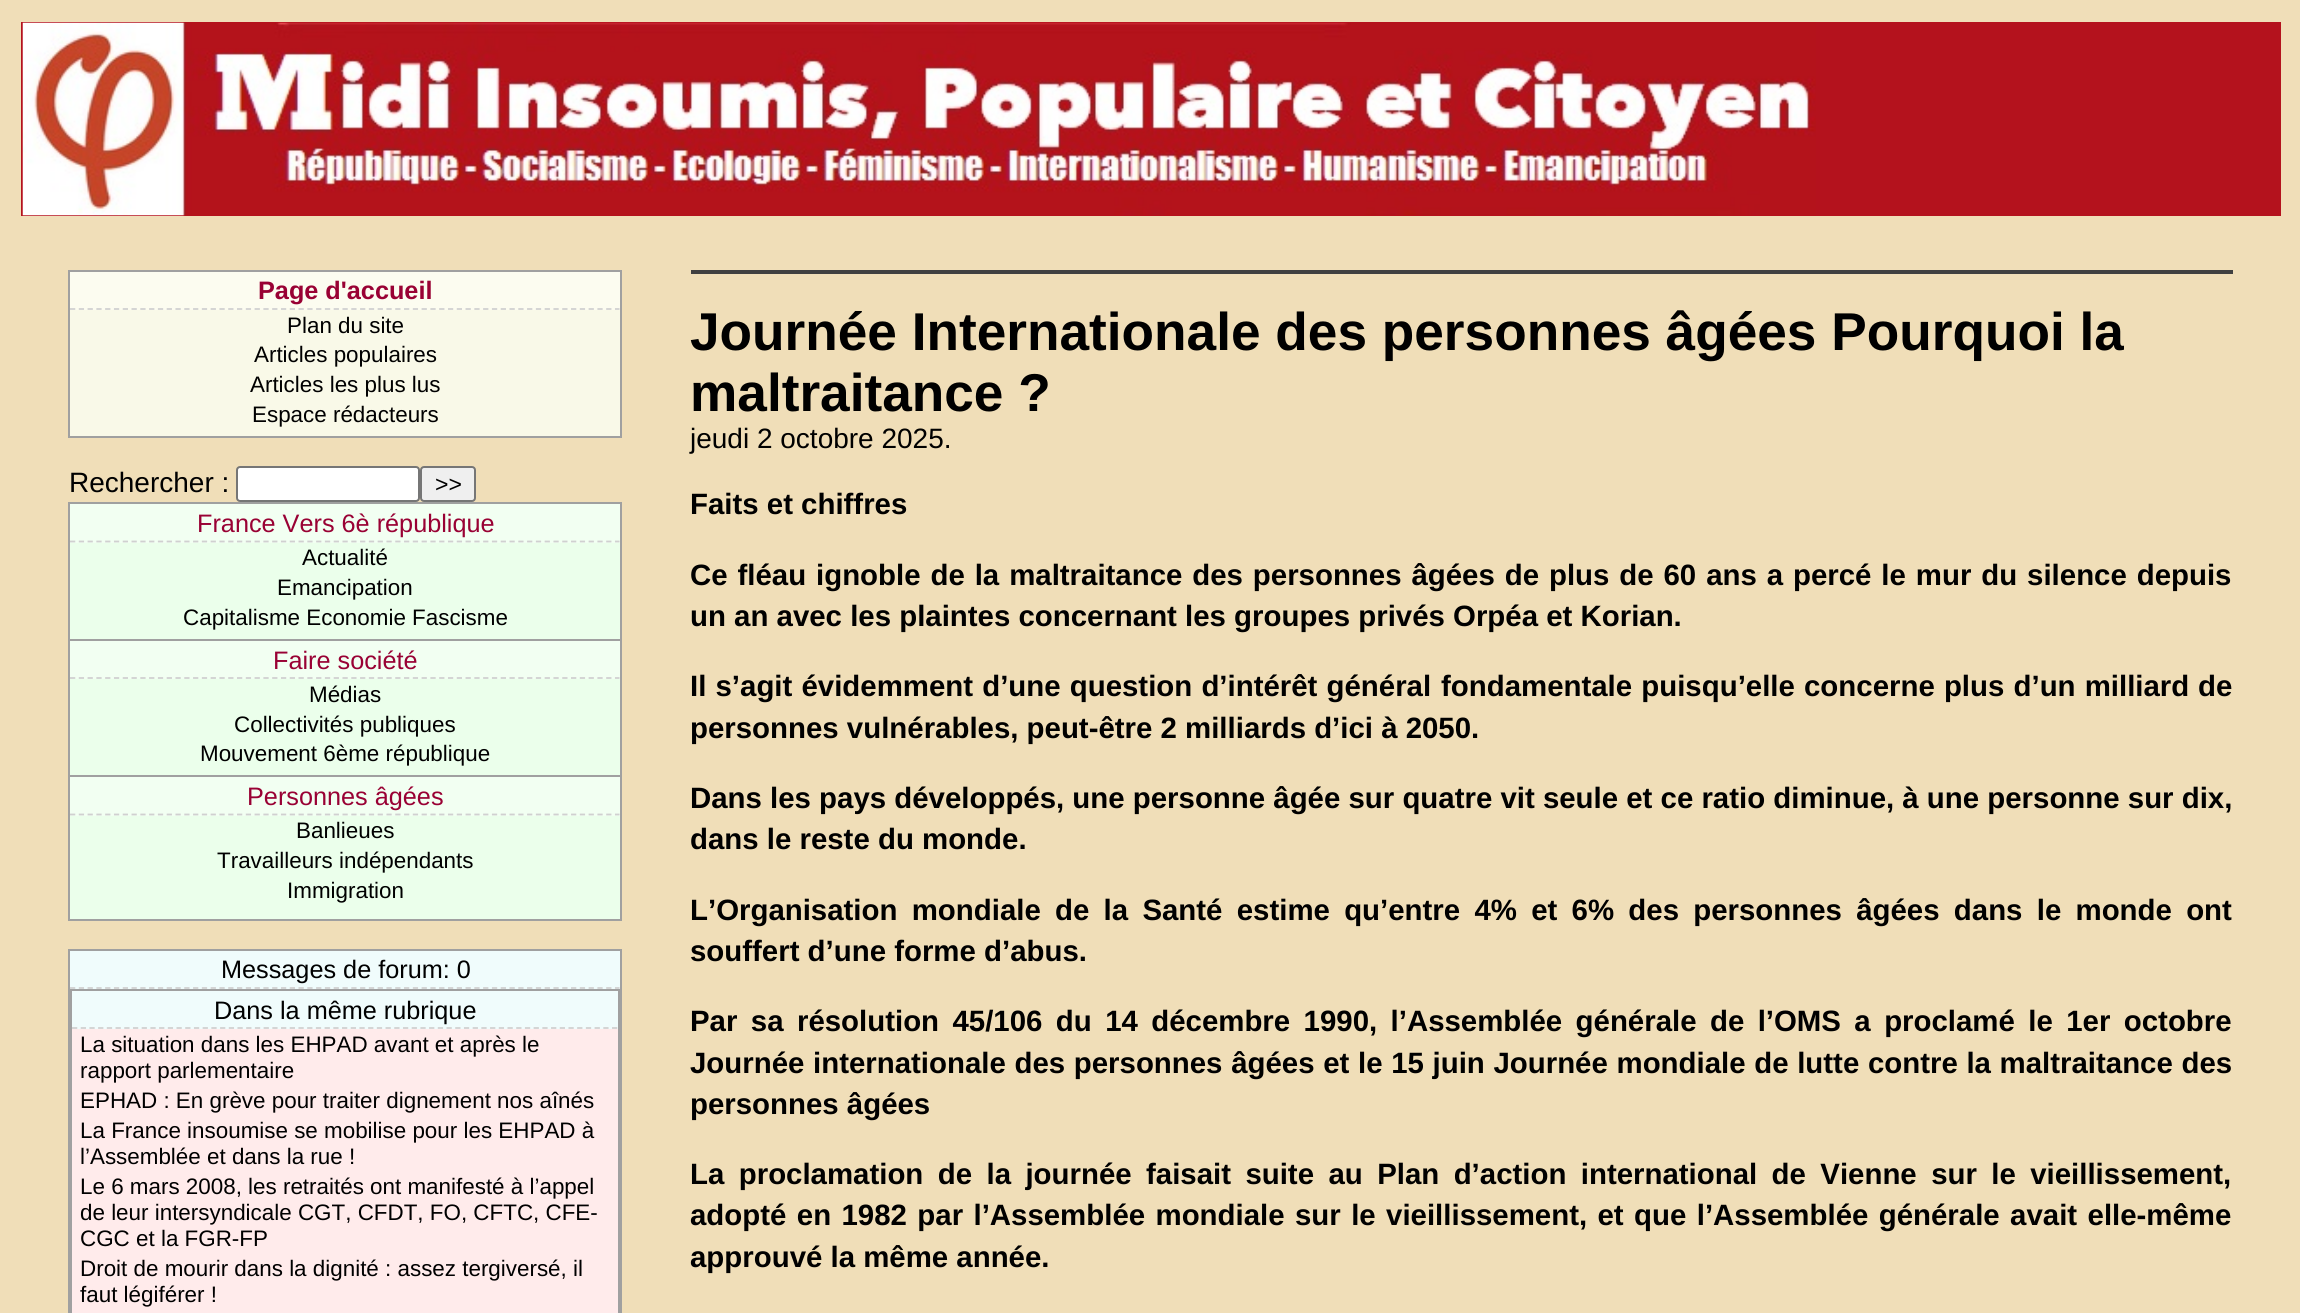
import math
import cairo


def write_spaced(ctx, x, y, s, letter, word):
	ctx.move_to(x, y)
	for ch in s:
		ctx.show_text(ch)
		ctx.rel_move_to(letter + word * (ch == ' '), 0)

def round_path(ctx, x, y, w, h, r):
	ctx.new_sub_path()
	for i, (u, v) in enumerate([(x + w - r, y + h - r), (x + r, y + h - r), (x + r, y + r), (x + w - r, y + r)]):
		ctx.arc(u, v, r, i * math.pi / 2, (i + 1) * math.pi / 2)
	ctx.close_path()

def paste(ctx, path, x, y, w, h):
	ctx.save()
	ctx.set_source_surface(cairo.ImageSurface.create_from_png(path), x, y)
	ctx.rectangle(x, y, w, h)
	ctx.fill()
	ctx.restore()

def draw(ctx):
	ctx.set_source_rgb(0.941, 0.871, 0.722)
	ctx.paint()
	ctx.set_source_rgb(0.706, 0.071, 0.114)
	ctx.rectangle(21, 22, 2260, 194)
	ctx.fill()
	paste(ctx, 'media/1.png', 22, 22, 1794, 194)
	ctx.set_source_rgb(0.627, 0.627, 0.627)
	ctx.rectangle(620, 270, 2, 168)
	ctx.rectangle(68, 436, 553, 2)
	ctx.rectangle(68, 270, 2, 168)
	ctx.fill()
	ctx.set_source_rgb(0.973, 0.973, 0.91)
	ctx.rectangle(70, 310, 550, 126)
	ctx.fill()
	ctx.set_source_rgb(0.988, 0.988, 0.941)
	ctx.rectangle(70, 272, 550, 38)
	ctx.fill()
	ctx.set_source_rgb(0.627, 0.627, 0.627)
	ctx.rectangle(70, 270, 550, 2)
	ctx.fill()
	ctx.new_path()
	ctx.move_to(70, 309)
	ctx.line_to(619.5, 309)
	ctx.set_source_rgb(0.816, 0.816, 0.816)
	ctx.set_line_width(1.8)
	ctx.set_dash([5.25, 3.54])
	ctx.stroke()
	ctx.select_font_face('Liberation Sans', cairo.FONT_SLANT_NORMAL, cairo.FONT_WEIGHT_BOLD)
	ctx.set_font_size(25.25)
	ctx.set_source_rgb(0.6, 0.004, 0.204)
	ctx.move_to(258, 299)
	ctx.show_text('Page d\'accueil')
	ctx.select_font_face('Liberation Sans')
	ctx.set_font_size(22.4)
	ctx.set_source_rgb(0, 0, 0)
	for x, y, s in [
		(287, 333, 'Plan du site'),
		(254, 362, 'Articles populaires'),
		(250, 392, 'Articles les plus lus'),
		(252, 422, 'Espace rédacteurs'),
	]:
		ctx.move_to(x, y)
		ctx.show_text(s)
	ctx.set_font_size(28)
	ctx.move_to(69, 492)
	ctx.show_text('Rechercher :')
	ctx.set_source_rgb(1, 1, 1)
	round_path(ctx, 237, 467, 182, 34, 3)
	ctx.fill_preserve()
	ctx.set_source_rgb(0.463, 0.463, 0.463)
	ctx.set_line_width(2)
	ctx.set_dash([])
	ctx.stroke()
	ctx.set_source_rgb(0.937, 0.937, 0.937)
	round_path(ctx, 421, 467, 54, 34, 3)
	ctx.fill_preserve()
	ctx.set_source_rgb(0.463, 0.463, 0.463)
	ctx.stroke()
	ctx.set_font_size(23)
	ctx.set_source_rgb(0, 0, 0)
	ctx.move_to(435, 492)
	ctx.show_text('>>')
	ctx.set_source_rgb(0.627, 0.627, 0.627)
	ctx.rectangle(620, 502, 2, 419)
	ctx.rectangle(68, 919, 553, 2)
	ctx.rectangle(68, 502, 2, 419)
	ctx.fill()
	ctx.set_source_rgb(0.918, 1, 0.918)
	ctx.rectangle(70, 543, 550, 376)
	ctx.fill()
	ctx.set_source_rgb(0.949, 1, 0.949)
	ctx.rectangle(70, 504, 550, 39)
	ctx.fill()
	ctx.set_source_rgb(0.627, 0.627, 0.627)
	ctx.rectangle(70, 502, 550, 2)
	ctx.fill()
	ctx.new_path()
	ctx.move_to(70, 541.5)
	ctx.line_to(619.5, 541.5)
	ctx.set_source_rgb(0.816, 0.816, 0.816)
	ctx.set_line_width(1.8)
	ctx.set_dash([5.25, 3.54])
	ctx.stroke()
	ctx.set_font_size(25.25)
	ctx.set_source_rgb(0.6, 0.004, 0.204)
	ctx.move_to(197, 532)
	ctx.show_text('France Vers 6è république')
	ctx.set_font_size(22.4)
	ctx.set_source_rgb(0, 0, 0)
	for x, y, s in [
		(302, 565, 'Actualité'),
		(277, 595, 'Emancipation'),
		(183, 625, 'Capitalisme Economie Fascisme'),
	]:
		ctx.move_to(x, y)
		ctx.show_text(s)
	ctx.set_source_rgb(0.949, 1, 0.949)
	ctx.rectangle(70, 641, 550, 38)
	ctx.fill()
	ctx.set_source_rgb(0.627, 0.627, 0.627)
	ctx.rectangle(70, 639, 550, 2)
	ctx.fill()
	ctx.new_path()
	ctx.move_to(70, 678)
	ctx.line_to(619.5, 678)
	ctx.set_source_rgb(0.816, 0.816, 0.816)
	ctx.stroke()
	ctx.set_font_size(25.25)
	ctx.set_source_rgb(0.6, 0.004, 0.204)
	ctx.move_to(273, 669)
	ctx.show_text('Faire société')
	ctx.set_font_size(22.4)
	ctx.set_source_rgb(0, 0, 0)
	for x, y, s in [
		(309, 702, 'Médias'),
		(234, 732, 'Collectivités publiques'),
		(200, 761, 'Mouvement 6ème république'),
	]:
		ctx.move_to(x, y)
		ctx.show_text(s)
	ctx.set_source_rgb(0.949, 1, 0.949)
	ctx.rectangle(70, 777, 550, 39)
	ctx.fill()
	ctx.set_source_rgb(0.627, 0.627, 0.627)
	ctx.rectangle(70, 775, 550, 2)
	ctx.fill()
	ctx.new_path()
	ctx.move_to(70, 814.5)
	ctx.line_to(619.5, 814.5)
	ctx.set_source_rgb(0.816, 0.816, 0.816)
	ctx.stroke()
	ctx.set_font_size(25.25)
	ctx.set_source_rgb(0.6, 0.004, 0.204)
	ctx.move_to(247, 805)
	ctx.show_text('Personnes âgées')
	ctx.set_font_size(22.4)
	ctx.set_source_rgb(0, 0, 0)
	for x, y, s in [
		(296, 838, 'Banlieues'),
		(217, 868, 'Travailleurs indépendants'),
		(287, 898, 'Immigration'),
	]:
		ctx.move_to(x, y)
		ctx.show_text(s)
	ctx.set_source_rgb(0.627, 0.627, 0.627)
	ctx.rectangle(620, 949, 2, 364)
	ctx.rectangle(68, 949, 2, 364)
	ctx.fill()
	ctx.set_source_rgb(0.941, 0.988, 0.988)
	ctx.rectangle(70, 951, 550, 38)
	ctx.fill()
	ctx.set_source_rgb(0.627, 0.627, 0.627)
	ctx.rectangle(70, 949, 550, 2)
	ctx.fill()
	ctx.new_path()
	ctx.move_to(70, 988)
	ctx.line_to(619.5, 988)
	ctx.set_source_rgb(0.816, 0.816, 0.816)
	ctx.stroke()
	ctx.set_font_size(25.25)
	ctx.set_source_rgb(0, 0, 0)
	ctx.move_to(221, 978)
	ctx.show_text('Messages de forum: 0')
	ctx.set_source_rgb(0.627, 0.627, 0.627)
	ctx.rectangle(618, 989, 2, 324)
	ctx.rectangle(70, 989, 2, 324)
	ctx.fill()
	ctx.set_source_rgb(1, 0.918, 0.918)
	ctx.rectangle(72, 1029, 546, 284)
	ctx.fill()
	ctx.set_source_rgb(0.941, 0.988, 0.988)
	ctx.rectangle(72, 991, 546, 38)
	ctx.fill()
	ctx.set_source_rgb(0.627, 0.627, 0.627)
	ctx.rectangle(72, 989, 546, 2)
	ctx.fill()
	ctx.new_path()
	ctx.move_to(72, 1028)
	ctx.line_to(618, 1028)
	ctx.set_source_rgb(0.816, 0.816, 0.816)
	ctx.set_dash([5.25, 3.46])
	ctx.stroke()
	ctx.set_source_rgb(0, 0, 0)
	ctx.move_to(214, 1019)
	ctx.show_text('Dans la même rubrique')
	ctx.set_font_size(22.4)
	for x, y, s in [
		(80, 1052, 'La situation dans les EHPAD avant et après le'),
		(80, 1078, 'rapport parlementaire'),
		(80, 1108, 'EPHAD : En grève pour traiter dignement nos aînés'),
		(80, 1138, 'La France insoumise se mobilise pour les EHPAD à'),
		(80, 1164, 'l’Assemblée et dans la rue !'),
		(80, 1194, 'Le 6 mars 2008, les retraités ont manifesté à l’appel'),
		(80, 1220, 'de leur intersyndicale CGT, CFDT, FO, CFTC, CFE-'),
		(80, 1246, 'CGC et la FGR-FP'),
		(80, 1276, 'Droit de mourir dans la dignité : assez tergiversé, il'),
		(80, 1302, 'faut légiférer !'),
	]:
		ctx.move_to(x, y)
		ctx.show_text(s)
	ctx.set_source_rgb(0.251, 0.251, 0.251)
	ctx.rectangle(691, 270, 1542, 4)
	ctx.fill()
	ctx.select_font_face('Liberation Sans', cairo.FONT_SLANT_NORMAL, cairo.FONT_WEIGHT_BOLD)
	ctx.set_font_size(53.2)
	ctx.set_source_rgb(0, 0, 0)
	ctx.move_to(690, 350)
	ctx.show_text('Journée Internationale des personnes âgées Pourquoi la')
	ctx.move_to(690, 411)
	ctx.show_text('maltraitance ?')
	ctx.select_font_face('Liberation Sans')
	ctx.set_font_size(28)
	ctx.move_to(690, 448)
	ctx.show_text('jeudi 2 octobre 2025.')
	ctx.select_font_face('Liberation Sans', cairo.FONT_SLANT_NORMAL, cairo.FONT_WEIGHT_BOLD)
	ctx.set_font_size(29.4)
	ctx.move_to(690, 514)
	ctx.show_text('Faits et chiffres')
	write_spaced(ctx, 690, 585, 'Ce fléau ignoble de la maltraitance des personnes âgées de plus de 60 ans a percé le mur du silence depuis', 0, 1.75)
	ctx.move_to(690, 626)
	ctx.show_text('un an avec les plaintes concernant les groupes privés Orpéa et Korian.')
	write_spaced(ctx, 690, 696, 'Il s’agit évidemment d’une question d’intérêt général', 0, 1)
	write_spaced(ctx, 1441, 696, 'fondamentale puisqu’elle concerne plus d’un milliard', 0, 1)
	for x, y, s in [
		(2198, 696, 'de'),
		(690, 738, 'personnes vulnérables, peut-être 2 milliards d’ici à 2050.'),
		(690, 808, 'Dans les pays développés, une personne âgée sur quatre vit seule et ce ratio diminue, à une personne sur dix,'),
		(690, 849, 'dans le reste du monde.'),
	]:
		ctx.move_to(x, y)
		ctx.show_text(s)
	write_spaced(ctx, 690, 920, 'L’Organisation mondiale de la Santé estime qu’entre 4% et 6% des personnes âgées dans le monde ont', 0, 6.1)
	ctx.move_to(690, 961)
	ctx.show_text('souffert d’une forme d’abus.')
	write_spaced(ctx, 690, 1031, 'Par sa résolution 45/106 du 14 décembre 1990, l’Assemblée générale de l’OMS a proclamé le 1er octobre', 0, 5.25)
	write_spaced(ctx, 690, 1073, 'Journée internationale des personnes âgées et le 15 juin Journée mondiale de lutte contre la maltraitance des', 0, 0.5)
	ctx.move_to(690, 1114)
	ctx.show_text('personnes âgées')
	write_spaced(ctx, 690, 1184, 'La proclamation de la journée faisait suite au Plan d’action international de Vienne sur le vieillissement,', 0, 6.25)
	write_spaced(ctx, 690, 1225, 'adopté en 1982 par l’Assemblée mondiale sur le vieillissement, et que l’Assemblée générale avait elle-même', 0, 2.25)
	ctx.move_to(690, 1267)
	ctx.show_text('approuvé la même année.')


surface = cairo.ImageSurface(cairo.FORMAT_RGB24, 2300, 1313)
ctx = cairo.Context(surface)
options = cairo.FontOptions()
options.set_hint_metrics(cairo.HINT_METRICS_OFF)
options.set_hint_style(cairo.HINT_STYLE_NONE)
ctx.set_font_options(options)
ctx.set_miter_limit(4)
draw(ctx)
surface.write_to_png('image.png')
